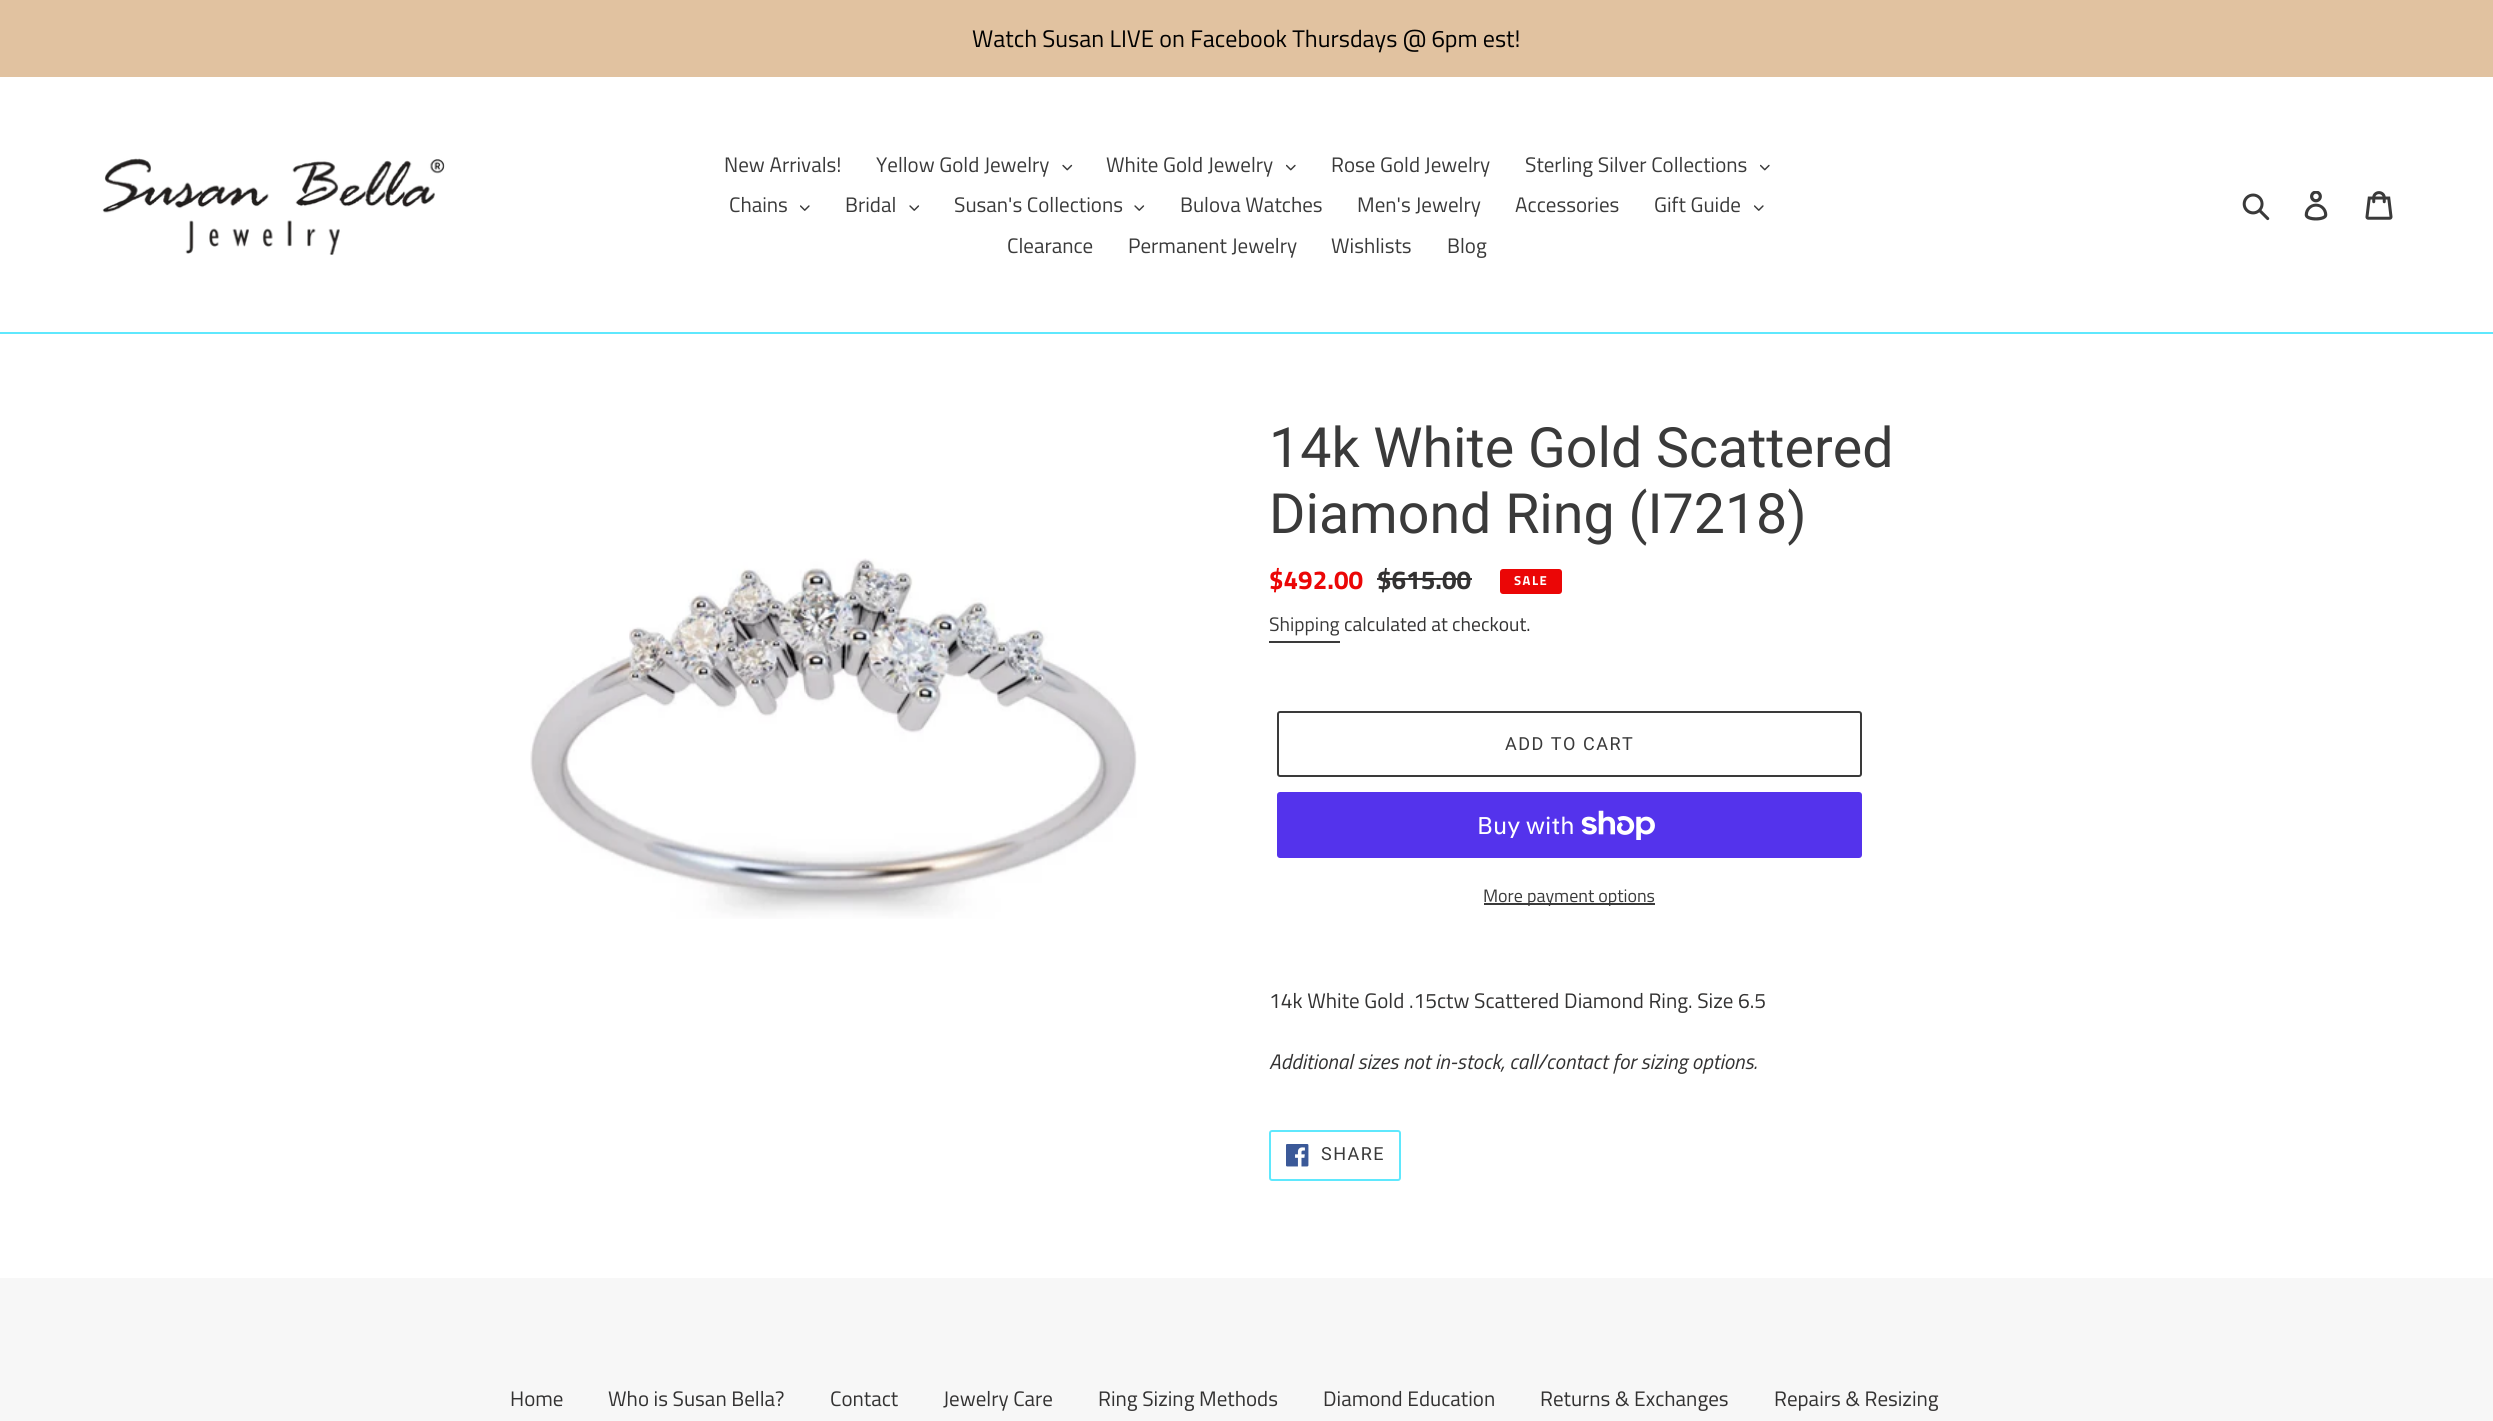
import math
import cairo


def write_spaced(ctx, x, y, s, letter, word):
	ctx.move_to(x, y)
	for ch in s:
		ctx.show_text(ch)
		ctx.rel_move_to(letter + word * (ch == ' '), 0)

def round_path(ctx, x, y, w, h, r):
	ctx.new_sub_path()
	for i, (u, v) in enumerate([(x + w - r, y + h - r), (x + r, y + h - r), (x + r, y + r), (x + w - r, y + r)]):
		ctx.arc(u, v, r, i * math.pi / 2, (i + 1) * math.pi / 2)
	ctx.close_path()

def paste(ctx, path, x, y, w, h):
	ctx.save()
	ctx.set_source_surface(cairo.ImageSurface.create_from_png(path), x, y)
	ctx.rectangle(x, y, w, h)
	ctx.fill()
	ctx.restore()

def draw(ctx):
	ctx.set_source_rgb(1, 1, 1)
	ctx.paint()
	ctx.set_source_rgb(0.882, 0.761, 0.627)
	ctx.rectangle(0, 0, 2493, 77)
	ctx.fill()
	ctx.select_font_face('Titillium Web')
	ctx.set_font_size(24)
	ctx.set_source_rgb(0, 0, 0)
	ctx.move_to(972, 47)
	ctx.show_text('Watch Susan LIVE on Facebook Thursdays @ 6pm est!')
	ctx.set_source_rgb(0.373, 0.91, 0.992)
	ctx.rectangle(0, 332, 2493, 2)
	ctx.fill()
	paste(ctx, 'media/1.png', 102, 158, 343, 97)
	ctx.set_font_size(21)
	ctx.set_source_rgb(0.227, 0.227, 0.227)
	ctx.move_to(724, 172)
	ctx.show_text('New Arrivals!')
	ctx.move_to(876, 172)
	ctx.show_text('Yellow Gold Jewelry')
	paste(ctx, 'media/2.png', 1062, 164, 11, 7)
	ctx.move_to(1106, 172)
	ctx.show_text('White Gold Jewelry')
	paste(ctx, 'media/3.png', 1286, 164, 10, 7)
	ctx.move_to(1331, 172)
	ctx.show_text('Rose Gold Jewelry')
	ctx.move_to(1525, 172)
	ctx.show_text('Sterling Silver Collections')
	paste(ctx, 'media/3.png', 1760, 164, 10, 7)
	ctx.move_to(729, 212)
	ctx.show_text('Chains')
	paste(ctx, 'media/4.png', 800, 205, 10, 6)
	ctx.move_to(845, 212)
	ctx.show_text('Bridal')
	paste(ctx, 'media/5.png', 909, 205, 11, 6)
	ctx.move_to(954, 212)
	ctx.show_text('Susan\'s Collections')
	paste(ctx, 'media/5.png', 1134, 205, 11, 6)
	for x, y, s in [
		(1180, 212, 'Bulova Watches'),
		(1357, 212, 'Men\'s Jewelry'),
		(1515, 212, 'Accessories'),
		(1654, 212, 'Gift Guide'),
	]:
		ctx.move_to(x, y)
		ctx.show_text(s)
	paste(ctx, 'media/4.png', 1754, 205, 10, 6)
	for x, y, s in [
		(1007, 253, 'Clearance'),
		(1128, 253, 'Permanent Jewelry'),
		(1331, 253, 'Wishlists'),
		(1447, 253, 'Blog'),
	]:
		ctx.move_to(x, y)
		ctx.show_text(s)
	paste(ctx, 'media/6.png', 2242, 193, 28, 28)
	paste(ctx, 'media/7.png', 2304, 191, 24, 30)
	paste(ctx, 'media/8.png', 2365, 191, 28, 29)
	paste(ctx, 'media/9.png', 530, 558, 607, 361)
	ctx.select_font_face('Roboto')
	ctx.set_font_size(55.5)
	ctx.move_to(1269, 467)
	ctx.show_text('14k White Gold Scattered')
	ctx.move_to(1269, 533)
	ctx.show_text('Diamond Ring (I7218)')
	ctx.select_font_face('Titillium Web', cairo.FONT_SLANT_NORMAL, cairo.FONT_WEIGHT_BOLD)
	ctx.set_font_size(26)
	ctx.set_source_rgb(0.918, 0.024, 0.024)
	ctx.move_to(1269, 589)
	ctx.show_text('$492.00')
	ctx.set_source_rgb(0.2, 0.196, 0.196)
	ctx.move_to(1377, 589)
	ctx.show_text('$615.00')
	ctx.rectangle(1377, 578, 95, 2)
	ctx.fill()
	ctx.set_source_rgb(0.918, 0.024, 0.024)
	round_path(ctx, 1501, 570, 60, 23, 2)
	ctx.fill_preserve()
	ctx.stroke()
	ctx.set_font_size(13)
	ctx.set_source_rgb(1, 1, 1)
	write_spaced(ctx, 1514, 585, 'SALE', 1.5, 0)
	ctx.select_font_face('Titillium Web')
	ctx.set_font_size(19.5)
	ctx.set_source_rgb(0.227, 0.227, 0.227)
	ctx.move_to(1269, 631)
	ctx.show_text('Shipping')
	ctx.rectangle(1269, 641, 71, 2)
	ctx.fill()
	ctx.set_source_rgb(0.2, 0.196, 0.196)
	ctx.move_to(1344, 631)
	ctx.show_text('calculated at checkout.')
	round_path(ctx, 1278, 712, 583, 64, 2)
	ctx.set_source_rgb(0.227, 0.227, 0.227)
	ctx.stroke()
	ctx.select_font_face('Roboto')
	ctx.set_font_size(18)
	write_spaced(ctx, 1505, 750, 'ADD TO CART', 1.5, 0)
	ctx.set_source_rgb(0.329, 0.2, 0.922)
	round_path(ctx, 1277, 792, 585, 66, 3)
	ctx.fill()
	ctx.select_font_face('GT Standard')
	ctx.set_font_size(24)
	ctx.set_source_rgb(1, 1, 1)
	ctx.move_to(1477, 834)
	ctx.show_text('Buy with')
	paste(ctx, 'media/10.png', 1581, 810, 74, 30)
	ctx.set_source_rgb(0.227, 0.227, 0.227)
	ctx.rectangle(1484, 903, 171, 2)
	ctx.fill()
	ctx.select_font_face('Titillium Web')
	ctx.set_font_size(18)
	ctx.move_to(1483, 902)
	ctx.show_text('More payment options')
	ctx.set_font_size(21)
	ctx.set_source_rgb(0.2, 0.196, 0.196)
	ctx.move_to(1269, 1008)
	ctx.show_text('14k White Gold .15ctw Scattered Diamond Ring. Size 6.5')
	ctx.select_font_face('Titillium Web', cairo.FONT_SLANT_ITALIC)
	ctx.move_to(1269, 1069)
	ctx.show_text('Additional sizes not in-stock, call/contact for sizing options.')
	round_path(ctx, 1270, 1131, 130, 49, 2)
	ctx.set_source_rgb(0.373, 0.91, 0.992)
	ctx.stroke()
	paste(ctx, 'media/11.png', 1286, 1144, 23, 23)
	ctx.select_font_face('Roboto')
	ctx.set_font_size(18)
	ctx.set_source_rgb(0.227, 0.227, 0.227)
	write_spaced(ctx, 1321, 1160, 'SHARE', 1.5, 0)
	ctx.set_source_rgb(0.965, 0.965, 0.965)
	ctx.rectangle(0, 1278, 2493, 143)
	ctx.fill()
	ctx.select_font_face('Titillium Web')
	ctx.set_font_size(21)
	ctx.set_source_rgb(0.2, 0.196, 0.196)
	for x, y, s in [
		(510, 1406, 'Home'),
		(608, 1406, 'Who is Susan Bella?'),
		(830, 1406, 'Contact'),
		(943, 1406, 'Jewelry Care'),
		(1098, 1406, 'Ring Sizing Methods'),
		(1323, 1406, 'Diamond Education'),
		(1540, 1406, 'Returns & Exchanges'),
		(1774, 1406, 'Repairs & Resizing'),
	]:
		ctx.move_to(x, y)
		ctx.show_text(s)


surface = cairo.ImageSurface(cairo.FORMAT_RGB24, 2493, 1421)
ctx = cairo.Context(surface)
options = cairo.FontOptions()
options.set_hint_metrics(cairo.HINT_METRICS_OFF)
options.set_hint_style(cairo.HINT_STYLE_NONE)
ctx.set_font_options(options)
ctx.set_miter_limit(4)
draw(ctx)
surface.write_to_png('image.png')
